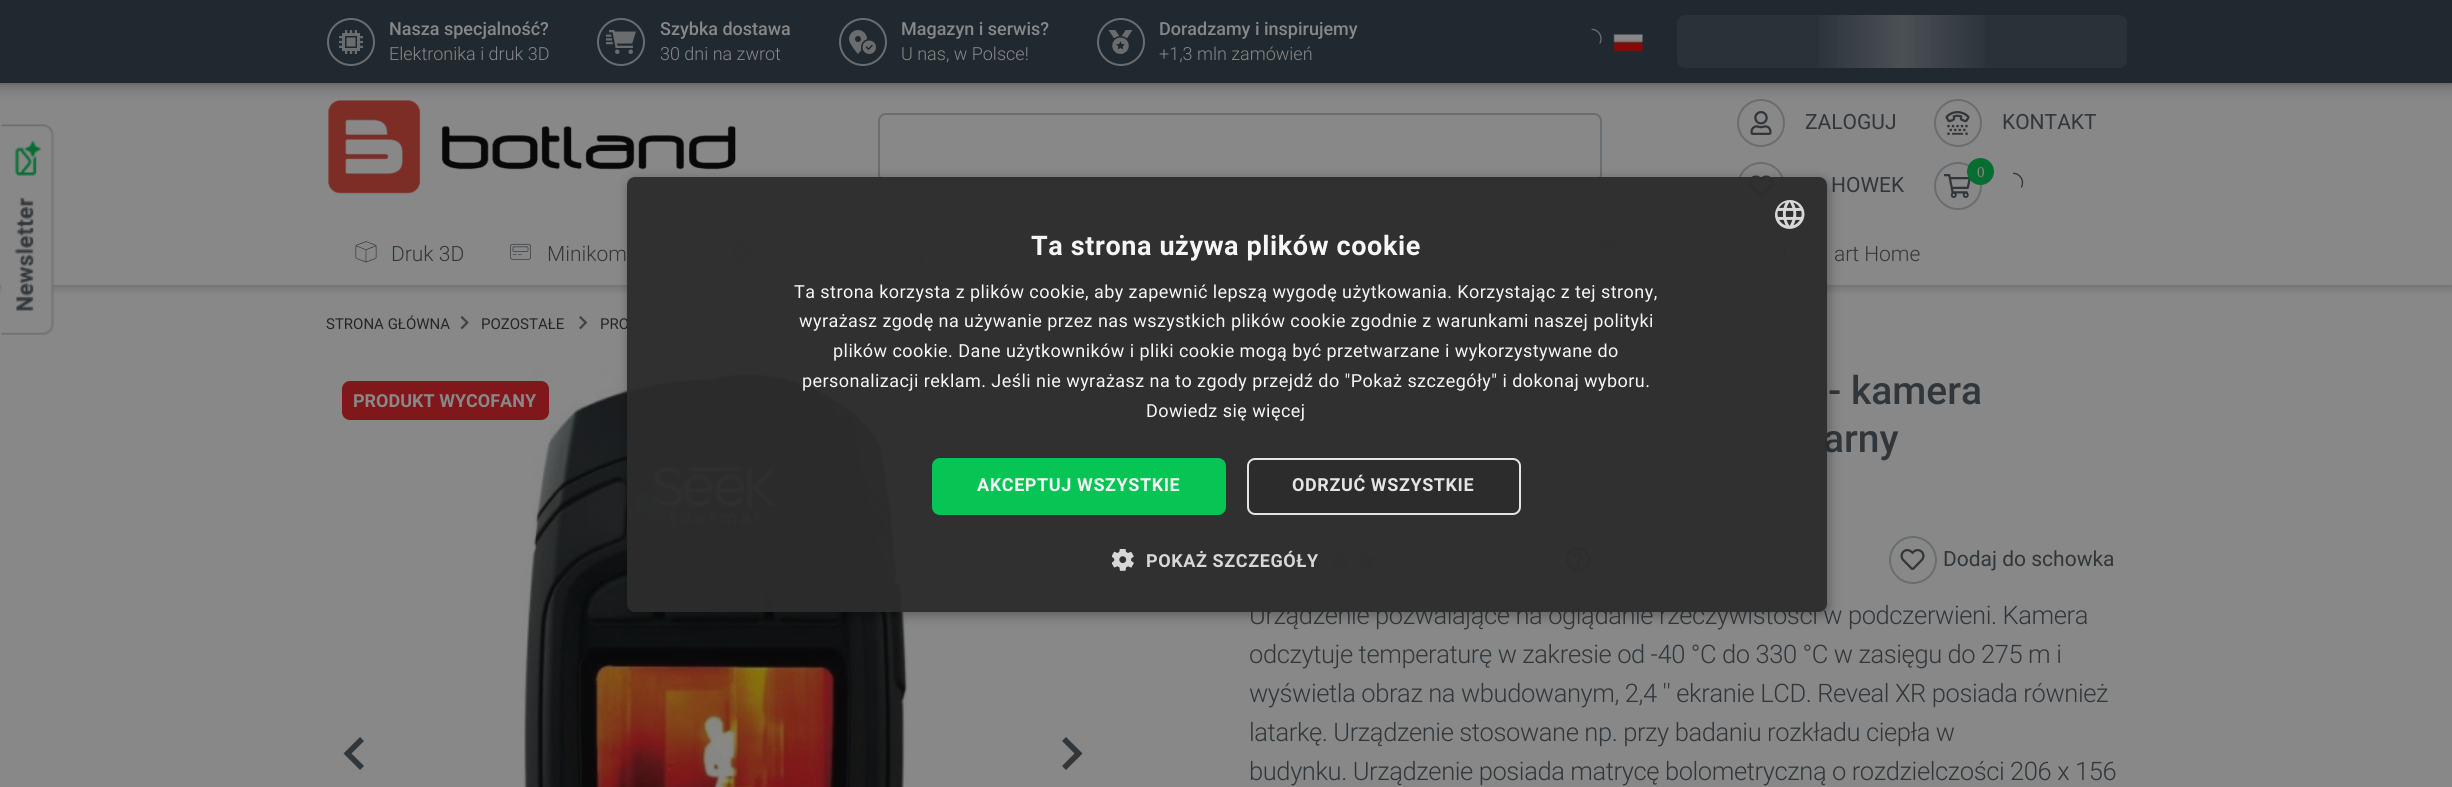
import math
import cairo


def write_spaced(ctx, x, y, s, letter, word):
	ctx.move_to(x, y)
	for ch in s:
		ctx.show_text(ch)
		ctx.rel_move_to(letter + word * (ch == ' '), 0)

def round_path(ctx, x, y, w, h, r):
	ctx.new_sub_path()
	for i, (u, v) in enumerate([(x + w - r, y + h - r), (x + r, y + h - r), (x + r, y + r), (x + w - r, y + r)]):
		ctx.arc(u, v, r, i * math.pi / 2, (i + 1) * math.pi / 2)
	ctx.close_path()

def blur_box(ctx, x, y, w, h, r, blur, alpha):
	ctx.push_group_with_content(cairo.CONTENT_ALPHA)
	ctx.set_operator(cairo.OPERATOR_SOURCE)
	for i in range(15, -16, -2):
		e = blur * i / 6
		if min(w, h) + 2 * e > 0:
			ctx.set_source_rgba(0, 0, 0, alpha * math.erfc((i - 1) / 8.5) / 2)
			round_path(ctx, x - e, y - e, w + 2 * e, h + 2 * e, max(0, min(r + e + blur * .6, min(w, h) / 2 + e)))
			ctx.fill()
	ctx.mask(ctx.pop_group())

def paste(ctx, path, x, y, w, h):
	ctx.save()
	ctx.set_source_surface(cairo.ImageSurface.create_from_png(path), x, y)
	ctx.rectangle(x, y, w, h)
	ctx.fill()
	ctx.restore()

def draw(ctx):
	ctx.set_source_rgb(0.533, 0.533, 0.533)
	ctx.paint()
	ctx.save()
	ctx.rectangle(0, 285, 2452, 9)
	ctx.clip()
	ctx.set_source_rgb(0.035, 0.035, 0.035)
	blur_box(ctx, 0, 3, 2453, 285, 0, 4.5, 0.2)
	ctx.restore()
	paste(ctx, 'media/1.png', 1, 124, 53, 211)
	ctx.set_source_rgb(0.035, 0.035, 0.035)
	blur_box(ctx, 0, 2, 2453, 84, 0, 7, 0.3)
	ctx.set_source_rgb(0.125, 0.157, 0.188)
	ctx.rectangle(0, 0, 2452, 83)
	ctx.fill()
	ctx.set_source_rgb(0.416, 0.427, 0.435)
	ctx.rectangle(0, 83, 2452, 2)
	ctx.fill()
	ctx.arc(351, 42, 23, 0, 2 * math.pi)
	ctx.stroke()
	paste(ctx, 'media/2.png', 339, 30, 24, 24)
	ctx.select_font_face('Roboto Medium')
	ctx.set_font_size(18)
	ctx.set_source_rgb(0.533, 0.533, 0.533)
	ctx.move_to(389, 35)
	ctx.show_text('Nasza specjalność?')
	ctx.select_font_face('Roboto Light')
	ctx.move_to(389, 60)
	ctx.show_text('Elektronika i druk 3D')
	ctx.new_path()
	ctx.arc(621, 42, 23, 0, 2 * math.pi)
	ctx.set_source_rgb(0.416, 0.427, 0.435)
	ctx.stroke()
	paste(ctx, 'media/3.png', 606, 30, 30, 24)
	ctx.select_font_face('Roboto Medium')
	ctx.set_source_rgb(0.533, 0.533, 0.533)
	ctx.move_to(660, 35)
	ctx.show_text('Szybka dostawa')
	ctx.select_font_face('Roboto Light')
	ctx.move_to(660, 60)
	ctx.show_text('30 dni na zwrot')
	ctx.new_path()
	ctx.arc(863, 42, 23, 0, 2 * math.pi)
	ctx.set_source_rgb(0.416, 0.427, 0.435)
	ctx.stroke()
	paste(ctx, 'media/4.png', 849, 30, 27, 24)
	ctx.select_font_face('Roboto Medium')
	ctx.set_source_rgb(0.533, 0.533, 0.533)
	ctx.move_to(901, 35)
	ctx.show_text('Magazyn i serwis?')
	ctx.select_font_face('Roboto Light')
	ctx.move_to(901, 60)
	ctx.show_text('U nas, w Polsce!')
	ctx.new_path()
	ctx.arc(1121, 42, 23, 0, 2 * math.pi)
	ctx.set_source_rgb(0.416, 0.427, 0.435)
	ctx.stroke()
	paste(ctx, 'media/5.png', 1108, 30, 25, 24)
	ctx.select_font_face('Roboto Medium')
	ctx.set_source_rgb(0.533, 0.533, 0.533)
	ctx.move_to(1159, 35)
	ctx.show_text('Doradzamy i inspirujemy')
	ctx.select_font_face('Roboto Light')
	ctx.move_to(1159, 60)
	ctx.show_text('+1,3 mln zamówień')
	paste(ctx, 'media/6.png', 1591, 28, 11, 16)
	paste(ctx, 'media/7.png', 1613, 34, 30, 18)
	ctx.set_source_rgb(0.165, 0.196, 0.224)
	round_path(ctx, 1677, 15, 450, 53, 8)
	ctx.fill()
	gradient = cairo.LinearGradient(777, 41, 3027, 41)
	gradient.add_color_stop_rgba(0.46, 0.533, 0.533, 0.533, 0)
	gradient.add_color_stop_rgba(0.5, 0.533, 0.533, 0.533, 0.35)
	gradient.add_color_stop_rgba(0.54, 0.533, 0.533, 0.533, 0)
	ctx.set_source(gradient)
	ctx.rectangle(1819, 15, 166, 53)
	ctx.fill()
	paste(ctx, 'media/8.png', 328, 100, 408, 94)
	round_path(ctx, 879, 114, 722, 67, 7)
	ctx.set_source_rgb(0.416, 0.427, 0.435)
	ctx.stroke()
	ctx.arc(1761, 123, 23, 0, 2 * math.pi)
	ctx.stroke()
	paste(ctx, 'media/9.png', 1750, 111, 22, 24)
	ctx.select_font_face('Roboto')
	ctx.set_font_size(21)
	ctx.set_source_rgb(0.188, 0.212, 0.227)
	ctx.move_to(1805, 129)
	ctx.show_text('ZALOGUJ')
	ctx.new_path()
	ctx.arc(1958, 123, 23, 0, 2 * math.pi)
	ctx.set_source_rgb(0.416, 0.427, 0.435)
	ctx.stroke()
	paste(ctx, 'media/10.png', 1945, 111, 25, 24)
	ctx.set_source_rgb(0.188, 0.212, 0.227)
	ctx.move_to(2002, 129)
	ctx.show_text('KONTAKT')
	ctx.new_path()
	ctx.arc(1958, 186, 23, 0, 2 * math.pi)
	ctx.set_source_rgb(0.416, 0.427, 0.435)
	ctx.stroke()
	paste(ctx, 'media/11.png', 1944, 174, 27, 24)
	ctx.set_source_rgb(0.035, 0.427, 0.192)
	ctx.arc(1980.5, 171.5, 13.5, 0, 2 * math.pi)
	ctx.fill()
	ctx.select_font_face('Liberation Serif')
	ctx.set_font_size(15)
	ctx.set_source_rgb(0.533, 0.533, 0.533)
	ctx.move_to(1977, 177)
	ctx.show_text('0')
	paste(ctx, 'media/12.png', 2013, 172, 11, 16)
	ctx.arc(1761, 186, 23, 0, 2 * math.pi)
	ctx.set_source_rgb(0.416, 0.427, 0.435)
	ctx.stroke()
	paste(ctx, 'media/13.png', 1749, 175, 24, 22)
	ctx.select_font_face('Roboto')
	ctx.set_font_size(21)
	ctx.set_source_rgb(0.188, 0.212, 0.227)
	ctx.move_to(1831, 192)
	ctx.show_text('HOWEK')
	paste(ctx, 'media/14.png', 355, 241, 22, 22)
	ctx.select_font_face('Roboto Light')
	ctx.move_to(391, 261)
	ctx.show_text('Druk 3D')
	paste(ctx, 'media/15.png', 510, 243, 21, 17)
	ctx.move_to(547, 261)
	ctx.show_text('Minikom')
	paste(ctx, 'media/16.png', 730, 241, 22, 22)
	paste(ctx, 'media/17.png', 915, 241, 10, 22)
	paste(ctx, 'media/18.png', 1060, 241, 27, 22)
	paste(ctx, 'media/19.png', 1329, 241, 21, 22)
	paste(ctx, 'media/20.png', 1597, 241, 22, 22)
	paste(ctx, 'media/21.png', 1764, 241, 24, 22)
	ctx.move_to(1834, 261)
	ctx.show_text('art Home')
	ctx.select_font_face('Roboto')
	ctx.set_font_size(15)
	ctx.set_source_rgb(0.133, 0.153, 0.169)
	ctx.move_to(326, 329)
	ctx.show_text('STRONA GŁÓWNA')
	paste(ctx, 'media/22.png', 460, 316, 9, 14)
	ctx.move_to(481, 329)
	ctx.show_text('POZOSTAŁE')
	paste(ctx, 'media/23.png', 579, 316, 9, 14)
	ctx.move_to(600, 329)
	ctx.show_text('PRO')
	paste(ctx, 'media/24.png', 522, 366, 387, 421)
	ctx.set_source_rgb(0.188, 0.212, 0.227)
	ctx.new_path()
	ctx.move_to(360, 737)
	ctx.line_to(343.5, 753.5)
	ctx.line_to(360, 770)
	ctx.line_to(364, 766)
	ctx.line_to(351.5, 753.5)
	ctx.line_to(364, 741)
	ctx.close_path()
	ctx.fill()
	ctx.new_path()
	ctx.move_to(1062, 741)
	ctx.line_to(1074.5, 753.5)
	ctx.line_to(1062, 766)
	ctx.line_to(1066, 770)
	ctx.line_to(1082.5, 753.5)
	ctx.line_to(1066, 737)
	ctx.close_path()
	ctx.fill()
	ctx.set_source_rgb(0.498, 0.09, 0.106)
	round_path(ctx, 342, 381, 207, 39, 8)
	ctx.fill()
	ctx.select_font_face('Roboto', cairo.FONT_SLANT_NORMAL, cairo.FONT_WEIGHT_BOLD)
	ctx.set_font_size(18)
	ctx.set_source_rgb(0.533, 0.533, 0.533)
	ctx.move_to(353, 407)
	ctx.show_text('PRODUKT WYCOFANY')
	ctx.select_font_face('Roboto Medium')
	ctx.set_font_size(39)
	ctx.set_source_rgb(0.188, 0.212, 0.227)
	ctx.move_to(1828, 404)
	ctx.show_text('- kamera')
	ctx.move_to(1823, 452)
	ctx.show_text('arny')
	round_path(ctx, 1250, 477, 195, 32, 11)
	ctx.fill()
	paste(ctx, 'media/25.png', 1249, 547, 130, 25)
	ctx.arc(1578, 560, 23, 0, 2 * math.pi)
	ctx.set_source_rgb(0.416, 0.427, 0.435)
	ctx.stroke()
	paste(ctx, 'media/26.png', 1566, 547, 24, 25)
	ctx.arc(1913, 560, 23, 0, 2 * math.pi)
	ctx.stroke()
	paste(ctx, 'media/27.png', 1900, 549, 25, 21)
	ctx.select_font_face('Roboto')
	ctx.set_font_size(21)
	ctx.set_source_rgb(0.188, 0.212, 0.227)
	ctx.move_to(1943, 566)
	ctx.show_text('Dodaj do schowka')
	ctx.select_font_face('Roboto Light')
	ctx.set_font_size(25.5)
	for x, y, s in [
		(1249, 624, 'Urządzenie pozwalające na oglądanie rzeczywistości w podczerwieni. Kamera'),
		(1249, 663, 'odczytuje temperaturę w zakresie od -40 °C do 330 °C w zasięgu do 275 m i'),
		(1249, 702, 'wyświetla obraz na wbudowanym, 2,4 \'\' ekranie LCD. Reveal XR posiada również'),
		(1249, 741, 'latarkę. Urządzenie stosowane np. przy badaniu rozkładu ciepła w'),
		(1249, 780, 'budynku. Urządzenie posiada matrycę bolometryczną o rozdzielczości 206 x 156'),
	]:
		write_spaced(ctx, x, y, s, -0.4, 0)
	ctx.save()
	ctx.set_fill_rule(cairo.FILL_RULE_EVEN_ODD)
	ctx.new_path()
	ctx.move_to(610, 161)
	ctx.line_to(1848, 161)
	ctx.line_to(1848, 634)
	ctx.line_to(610, 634)
	ctx.close_path()
	ctx.move_to(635, 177)
	ctx.line_to(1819, 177)
	ctx.curve_to(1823.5, 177, 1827, 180.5, 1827, 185)
	ctx.line_to(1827, 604)
	ctx.curve_to(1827, 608.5, 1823.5, 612, 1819, 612)
	ctx.line_to(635, 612)
	ctx.curve_to(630.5, 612, 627, 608.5, 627, 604)
	ctx.line_to(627, 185)
	ctx.curve_to(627, 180.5, 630.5, 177, 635, 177)
	ctx.close_path()
	ctx.clip()
	ctx.set_source_rgb(0, 0, 0)
	blur_box(ctx, 629, 180, 1200, 435, 8, 6, 0.33)
	ctx.restore()
	ctx.set_source_rgba(0.176, 0.176, 0.176, 0.95)
	round_path(ctx, 627, 177, 1200, 435, 8)
	ctx.fill()
	paste(ctx, 'media/28.png', 1775, 200, 30, 29)
	ctx.select_font_face('Roboto', cairo.FONT_SLANT_NORMAL, cairo.FONT_WEIGHT_BOLD)
	ctx.set_font_size(27)
	ctx.set_source_rgb(0.961, 0.961, 0.961)
	write_spaced(ctx, 1031, 255, 'Ta strona używa plików cookie', 0.6, 0)
	ctx.select_font_face('Roboto')
	ctx.set_font_size(18)
	for x, y, s in [
		(794, 298, 'Ta strona korzysta z plików cookie, aby zapewnić lepszą wygodę użytkowania. Korzystając z tej strony,'),
		(799, 327, 'wyrażasz zgodę na używanie przez nas wszystkich plików cookie zgodnie z warunkami naszej polityki'),
		(833, 357, 'plików cookie. Dane użytkowników i pliki cookie mogą być przetwarzane i wykorzystywane do'),
		(802, 387, 'personalizacji reklam. Jeśli nie wyrażasz na to zgody przejdź do "Pokaż szczegóły" i dokonaj wyboru.'),
		(1146, 417, 'Dowiedz się więcej'),
	]:
		write_spaced(ctx, x, y, s, 0.45, 0)
	ctx.set_source_rgb(0.027, 0.773, 0.329)
	round_path(ctx, 932, 458, 294, 57, 8)
	ctx.fill()
	ctx.select_font_face('Roboto', cairo.FONT_SLANT_NORMAL, cairo.FONT_WEIGHT_BOLD)
	ctx.set_source_rgb(0.961, 0.961, 0.961)
	write_spaced(ctx, 977, 491, 'AKCEPTUJ WSZYSTKIE', 0.6, 0)
	ctx.set_source_rgba(0.176, 0.176, 0.176, 0.95)
	round_path(ctx, 1248, 459, 272, 55, 7)
	ctx.fill_preserve()
	ctx.set_source_rgb(0.894, 0.894, 0.894)
	ctx.stroke()
	write_spaced(ctx, 1292, 491, 'ODRZUĆ WSZYSTKIE', 0.6, 0)
	paste(ctx, 'media/29.png', 1112, 549, 22, 22)
	ctx.set_source_rgb(0.843, 0.843, 0.843)
	write_spaced(ctx, 1146, 567, 'POKAŻ SZCZEGÓŁY', 0.6, 0)


surface = cairo.ImageSurface(cairo.FORMAT_RGB24, 2452, 787)
ctx = cairo.Context(surface)
options = cairo.FontOptions()
options.set_hint_metrics(cairo.HINT_METRICS_OFF)
options.set_hint_style(cairo.HINT_STYLE_NONE)
ctx.set_font_options(options)
ctx.set_miter_limit(4)
draw(ctx)
surface.write_to_png('image.png')
